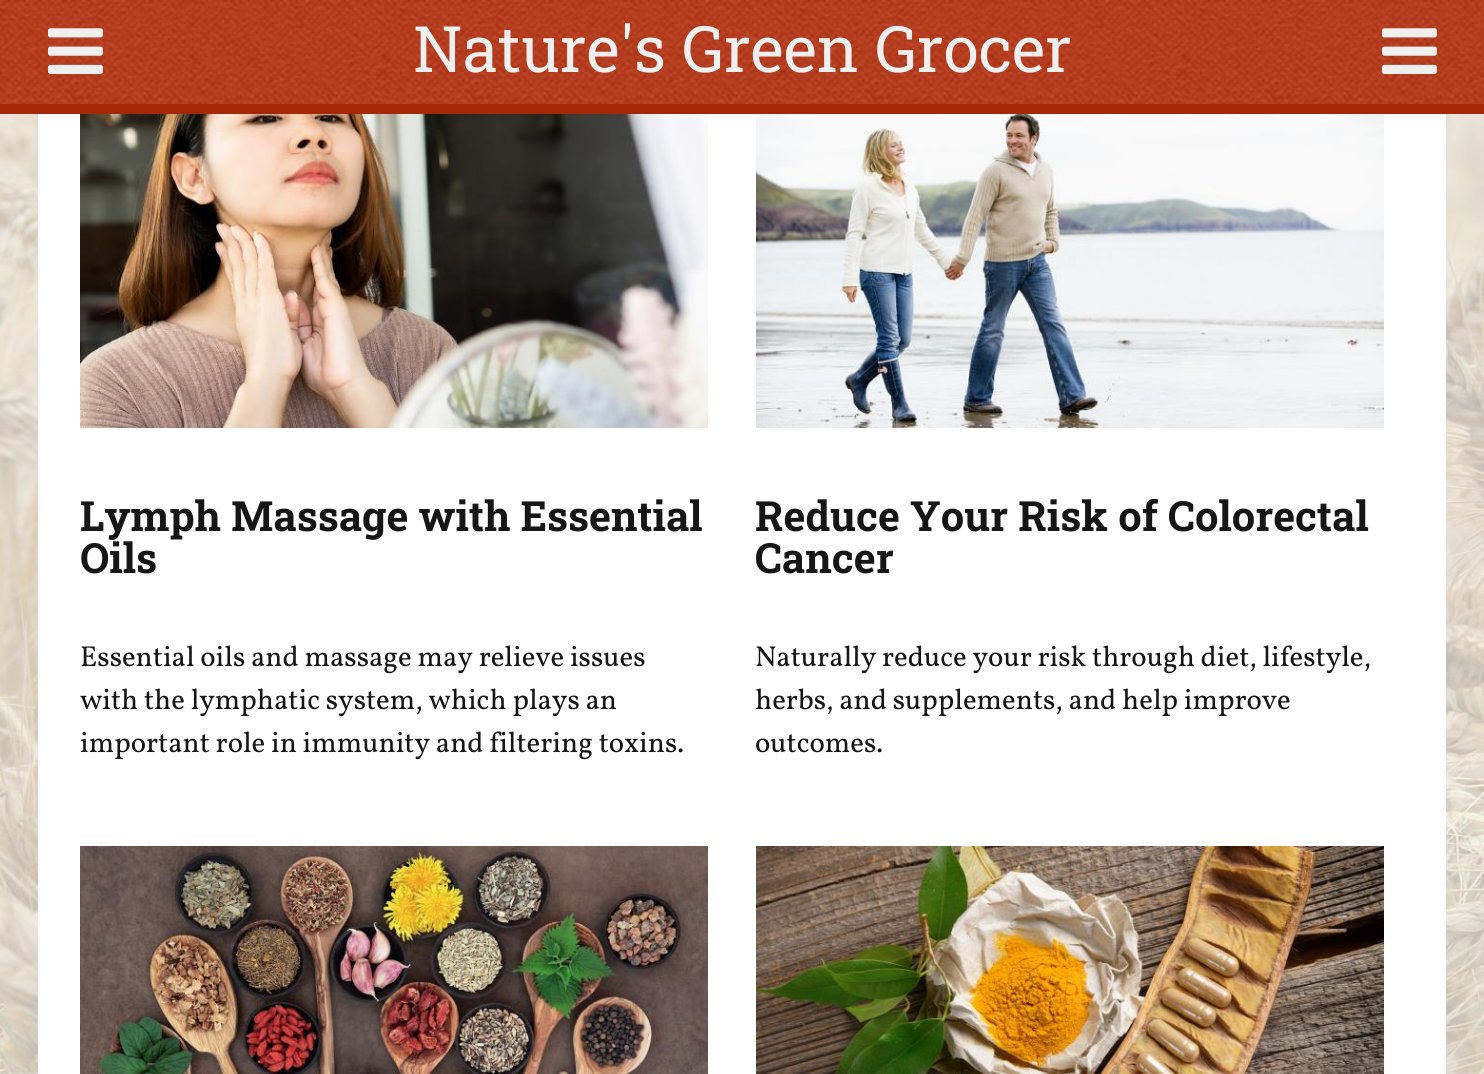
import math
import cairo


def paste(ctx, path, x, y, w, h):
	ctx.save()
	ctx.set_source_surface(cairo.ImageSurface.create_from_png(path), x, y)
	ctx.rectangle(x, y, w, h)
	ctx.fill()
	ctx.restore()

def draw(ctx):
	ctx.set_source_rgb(1, 1, 1)
	ctx.paint()
	paste(ctx, 'media/1.png', 0, 114, 1484, 960)
	ctx.set_source_rgb(0.753, 0.2, 0.063)
	ctx.rectangle(0, 0, 1484, 104)
	ctx.fill()
	paste(ctx, 'media/2.png', 0, 0, 1484, 104)
	ctx.set_source_rgb(0.643, 0.153, 0.031)
	ctx.rectangle(0, 104, 1484, 10)
	ctx.fill()
	paste(ctx, 'media/3.png', 48, 28, 55, 46)
	ctx.select_font_face('Roboto Slab')
	ctx.set_font_size(64)
	ctx.set_source_rgb(0.937, 0.937, 0.937)
	ctx.move_to(413, 72)
	ctx.show_text('Nature\'s Green Grocer')
	paste(ctx, 'media/4.png', 1382, 28, 55, 46)
	ctx.set_source_rgb(1, 1, 1)
	ctx.rectangle(38, 114, 1408, 960)
	ctx.fill()
	paste(ctx, 'media/5.png', 80, 114, 628, 314)
	ctx.select_font_face('Roboto Slab', cairo.FONT_SLANT_NORMAL, cairo.FONT_WEIGHT_BOLD)
	ctx.set_font_size(41.6)
	ctx.set_source_rgb(0.086, 0.086, 0.086)
	ctx.move_to(80, 531)
	ctx.show_text('Lymph Massage with Essential')
	ctx.move_to(80, 573)
	ctx.show_text('Oils')
	ctx.select_font_face('Vollkorn')
	ctx.set_font_size(28.8)
	for x, y, s in [
		(80, 666, 'Essential oils and massage may relieve issues'),
		(80, 709, 'with the lymphatic system, which plays an'),
		(80, 752, 'important role in immunity and filtering toxins.'),
	]:
		ctx.move_to(x, y)
		ctx.show_text(s)
	paste(ctx, 'media/6.png', 756, 114, 628, 314)
	ctx.select_font_face('Roboto Slab', cairo.FONT_SLANT_NORMAL, cairo.FONT_WEIGHT_BOLD)
	ctx.set_font_size(41.6)
	ctx.move_to(755, 531)
	ctx.show_text('Reduce Your Risk of Colorectal')
	ctx.move_to(755, 573)
	ctx.show_text('Cancer')
	ctx.select_font_face('Vollkorn')
	ctx.set_font_size(28.8)
	for x, y, s in [
		(755, 666, 'Naturally reduce your risk through diet, lifestyle,'),
		(755, 709, 'herbs, and supplements, and help improve'),
		(755, 752, 'outcomes.'),
	]:
		ctx.move_to(x, y)
		ctx.show_text(s)
	paste(ctx, 'media/7.png', 80, 846, 628, 228)
	paste(ctx, 'media/8.png', 756, 846, 628, 228)


surface = cairo.ImageSurface(cairo.FORMAT_RGB24, 1484, 1074)
ctx = cairo.Context(surface)
options = cairo.FontOptions()
options.set_hint_metrics(cairo.HINT_METRICS_OFF)
options.set_hint_style(cairo.HINT_STYLE_NONE)
ctx.set_font_options(options)
ctx.set_miter_limit(4)
draw(ctx)
surface.write_to_png('image.png')
